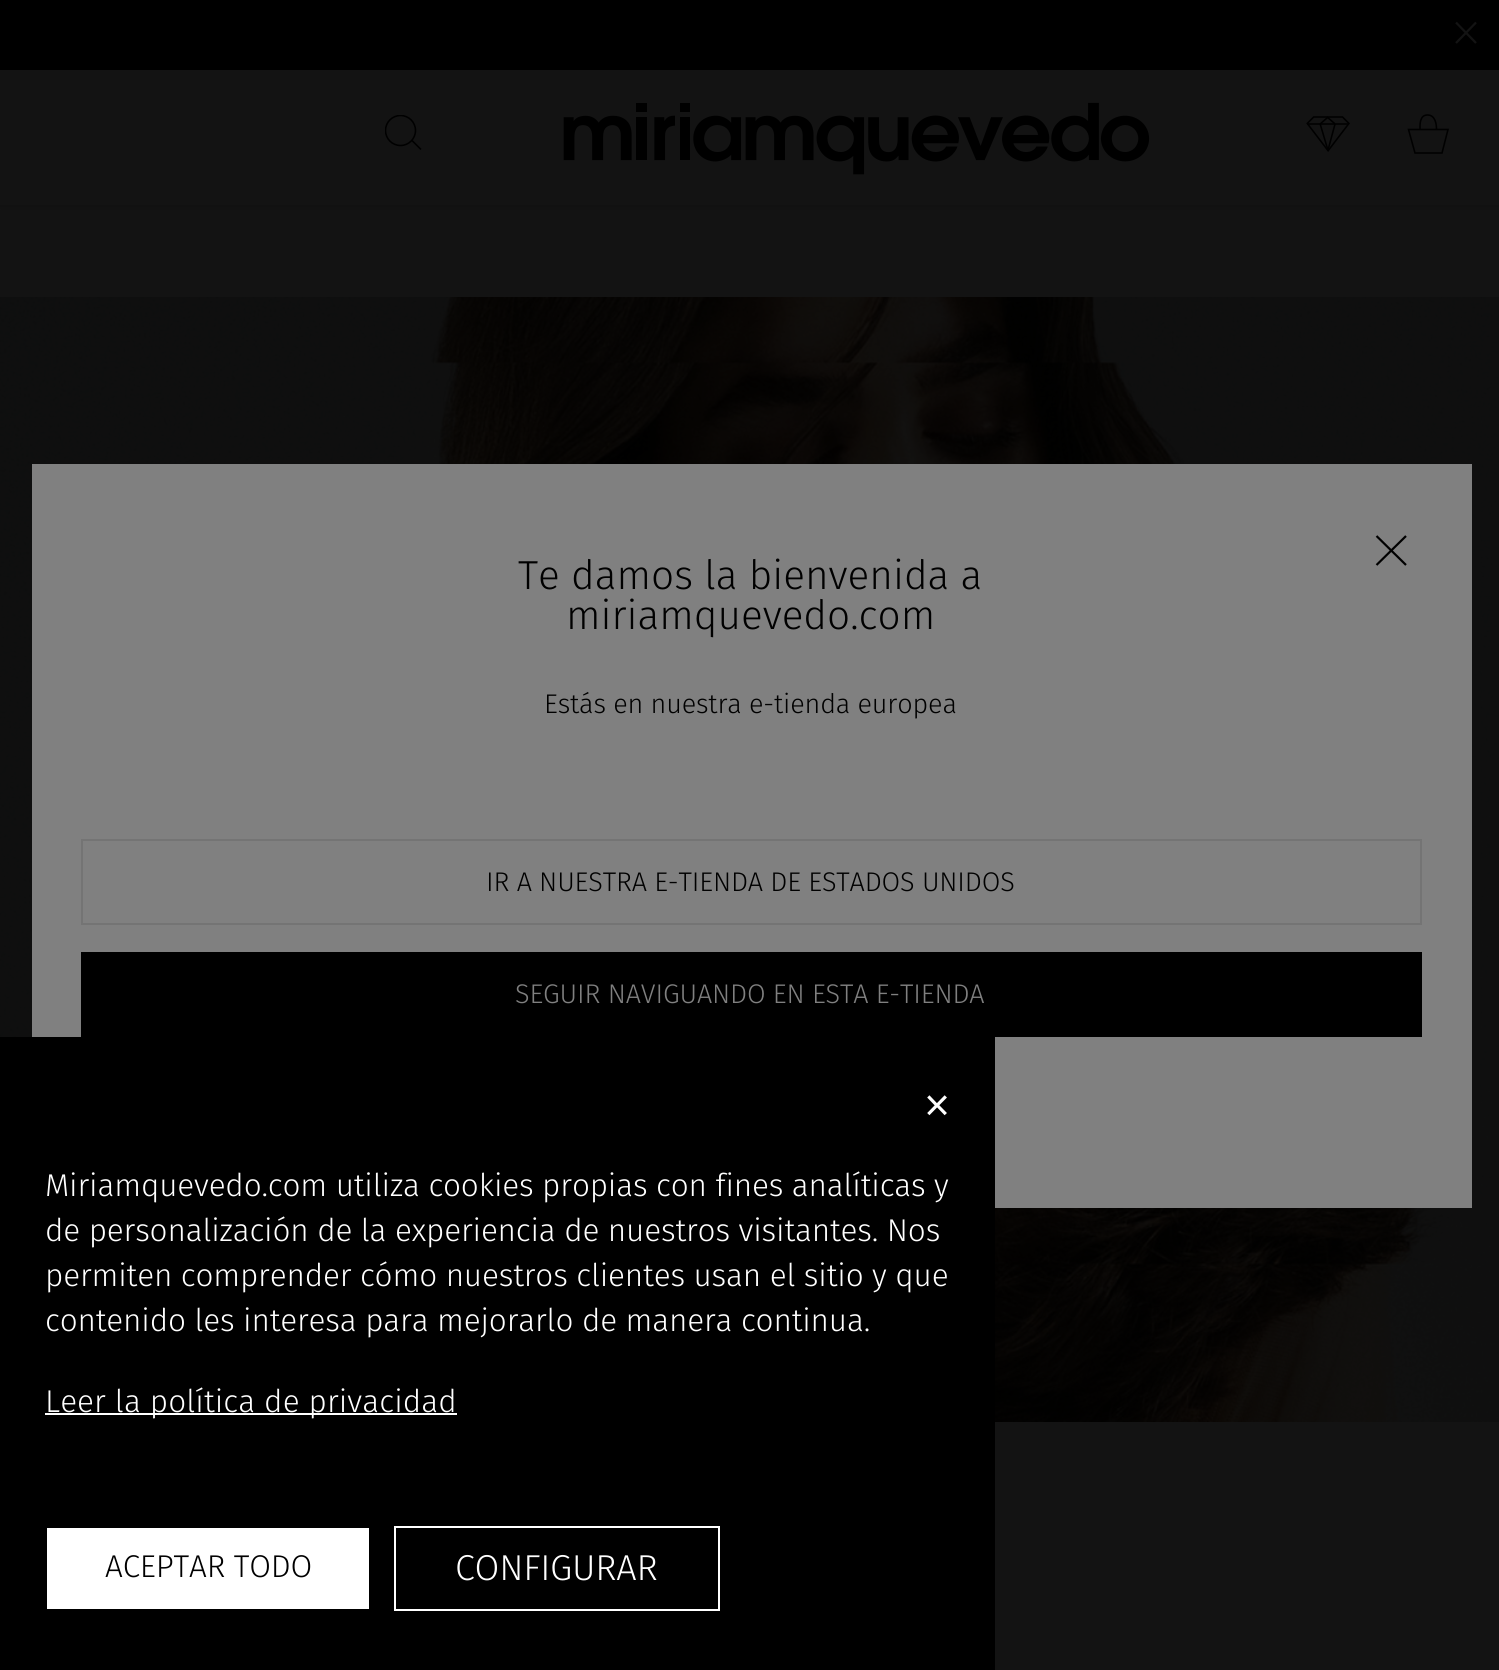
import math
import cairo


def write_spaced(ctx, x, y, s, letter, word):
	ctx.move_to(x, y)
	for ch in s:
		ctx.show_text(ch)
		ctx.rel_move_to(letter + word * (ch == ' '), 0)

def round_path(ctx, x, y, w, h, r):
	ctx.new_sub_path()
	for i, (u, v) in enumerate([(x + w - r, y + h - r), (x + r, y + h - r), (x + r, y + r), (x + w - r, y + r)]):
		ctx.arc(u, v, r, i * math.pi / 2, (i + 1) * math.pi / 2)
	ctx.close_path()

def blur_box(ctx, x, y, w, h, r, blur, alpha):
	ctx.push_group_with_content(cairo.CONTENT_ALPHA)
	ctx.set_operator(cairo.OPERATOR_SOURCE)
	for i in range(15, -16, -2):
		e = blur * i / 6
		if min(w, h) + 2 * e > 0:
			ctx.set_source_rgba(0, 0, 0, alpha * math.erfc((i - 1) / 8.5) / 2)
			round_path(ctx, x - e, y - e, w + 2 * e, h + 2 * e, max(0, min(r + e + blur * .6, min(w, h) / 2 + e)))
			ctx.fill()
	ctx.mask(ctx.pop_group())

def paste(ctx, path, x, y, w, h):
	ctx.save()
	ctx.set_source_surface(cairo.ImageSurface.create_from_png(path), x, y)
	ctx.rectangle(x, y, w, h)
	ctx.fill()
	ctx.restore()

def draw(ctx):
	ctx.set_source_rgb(0.494, 0.494, 0.494)
	ctx.paint()
	ctx.set_source_rgb(0, 0, 0)
	blur_box(ctx, 0, 2, 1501, 205, 0, 2, 0.15)
	ctx.set_source_rgb(0.502, 0.502, 0.502)
	ctx.rectangle(0, 70, 1499, 135)
	ctx.fill()
	ctx.set_source_rgb(0, 0, 0)
	ctx.rectangle(0, 0, 1499, 70)
	ctx.fill()
	ctx.new_path()
	ctx.move_to(1456, 22.5)
	ctx.line_to(1476, 43)
	ctx.move_to(1476, 22.5)
	ctx.line_to(1456, 43)
	ctx.set_source_rgb(0.502, 0.502, 0.502)
	ctx.set_line_width(2.2)
	ctx.stroke()
	ctx.save()
	ctx.rectangle(385, 115, 38, 36)
	ctx.clip()
	ctx.arc(400.5, 130.5, 15, 0, 2 * math.pi)
	ctx.set_source_rgb(0, 0, 0)
	ctx.set_line_width(1.6)
	ctx.stroke()
	ctx.restore()
	ctx.new_path()
	ctx.move_to(412, 140.5)
	ctx.line_to(421, 149.5)
	ctx.set_source_rgb(0, 0, 0)
	ctx.set_line_width(1.6)
	ctx.stroke()
	paste(ctx, 'media/1.png', 563, 102, 587, 73)
	paste(ctx, 'media/2.png', 1306, 116, 44, 36)
	ctx.new_path()
	ctx.move_to(1415, 153)
	ctx.line_to(1408.5, 129.5)
	ctx.line_to(1448, 129.5)
	ctx.line_to(1442, 153)
	ctx.close_path()
	ctx.move_to(1420, 129.5)
	ctx.curve_to(1420, 124.5, 1419.5, 115, 1427.5, 115)
	ctx.curve_to(1435.5, 115, 1436.5, 124.5, 1436.5, 129.5)
	ctx.stroke()
	paste(ctx, 'media/3.png', 0, 297, 1499, 1125)
	ctx.set_source_rgba(0, 0, 0, 0.85)
	ctx.rectangle(0, 21, 1499, 1649)
	ctx.fill()
	ctx.set_source_rgb(0.502, 0.502, 0.502)
	ctx.rectangle(32, 464, 1440, 744)
	ctx.fill()
	ctx.new_path()
	ctx.move_to(1376.5, 536)
	ctx.line_to(1406, 565)
	ctx.move_to(1406, 536)
	ctx.line_to(1376.5, 565)
	ctx.set_source_rgb(0, 0, 0)
	ctx.set_line_width(2.2)
	ctx.stroke()
	ctx.select_font_face('Fira Sans Light')
	ctx.set_font_size(40.5)
	ctx.move_to(518, 589)
	ctx.show_text('Te damos la bienvenida a')
	ctx.move_to(566, 629)
	ctx.show_text('miriamquevedo.com')
	ctx.set_font_size(27)
	write_spaced(ctx, 544, 713, 'Estás en nuestra e-tienda europea', -0.15, 0)
	ctx.rectangle(82, 840, 1339, 84)
	ctx.set_source_rgb(0.455, 0.455, 0.455)
	ctx.set_line_width(2)
	ctx.stroke()
	ctx.set_source_rgb(0, 0, 0)
	write_spaced(ctx, 486, 891, 'IR A NUESTRA E-TIENDA DE ESTADOS UNIDOS', -0.15, 0)
	ctx.rectangle(81, 952, 1341, 85)
	ctx.fill()
	ctx.set_source_rgb(0.502, 0.502, 0.502)
	write_spaced(ctx, 515, 1003, 'SEGUIR NAVIGUANDO EN ESTA E-TIENDA', -0.15, 0)
	ctx.set_source_rgb(0, 0, 0)
	ctx.rectangle(0, 1037, 995, 633)
	ctx.fill()
	ctx.set_font_size(61)
	ctx.set_source_rgb(1, 1, 1)
	ctx.move_to(922, 1124)
	ctx.show_text('×')
	ctx.set_font_size(31.5)
	for x, y, s in [
		(45, 1196, 'Miriamquevedo.com utiliza cookies propias con fines analíticas y'),
		(45, 1241, 'de personalización de la experiencia de nuestros visitantes. Nos'),
		(45, 1286, 'permiten comprender cómo nuestros clientes usan el sitio y que'),
		(45, 1331, 'contenido les interesa para mejorarlo de manera continua.'),
	]:
		write_spaced(ctx, x, y, s, -0.15, 0)
	ctx.rectangle(45, 1413, 412, 2)
	ctx.fill()
	write_spaced(ctx, 45, 1412, 'Leer la política de privacidad', 0.1, 0)
	ctx.rectangle(47, 1528, 322, 81)
	ctx.fill()
	ctx.set_source_rgb(0, 0, 0)
	write_spaced(ctx, 105, 1577, 'ACEPTAR TODO', -0.15, 0)
	ctx.rectangle(395, 1527, 324, 83)
	ctx.set_source_rgb(1, 1, 1)
	ctx.stroke()
	ctx.set_font_size(36)
	write_spaced(ctx, 455, 1580, 'CONFIGURAR', -0.25, 0)


surface = cairo.ImageSurface(cairo.FORMAT_RGB24, 1499, 1670)
ctx = cairo.Context(surface)
options = cairo.FontOptions()
options.set_hint_metrics(cairo.HINT_METRICS_OFF)
options.set_hint_style(cairo.HINT_STYLE_NONE)
ctx.set_font_options(options)
ctx.set_miter_limit(4)
draw(ctx)
surface.write_to_png('image.png')
